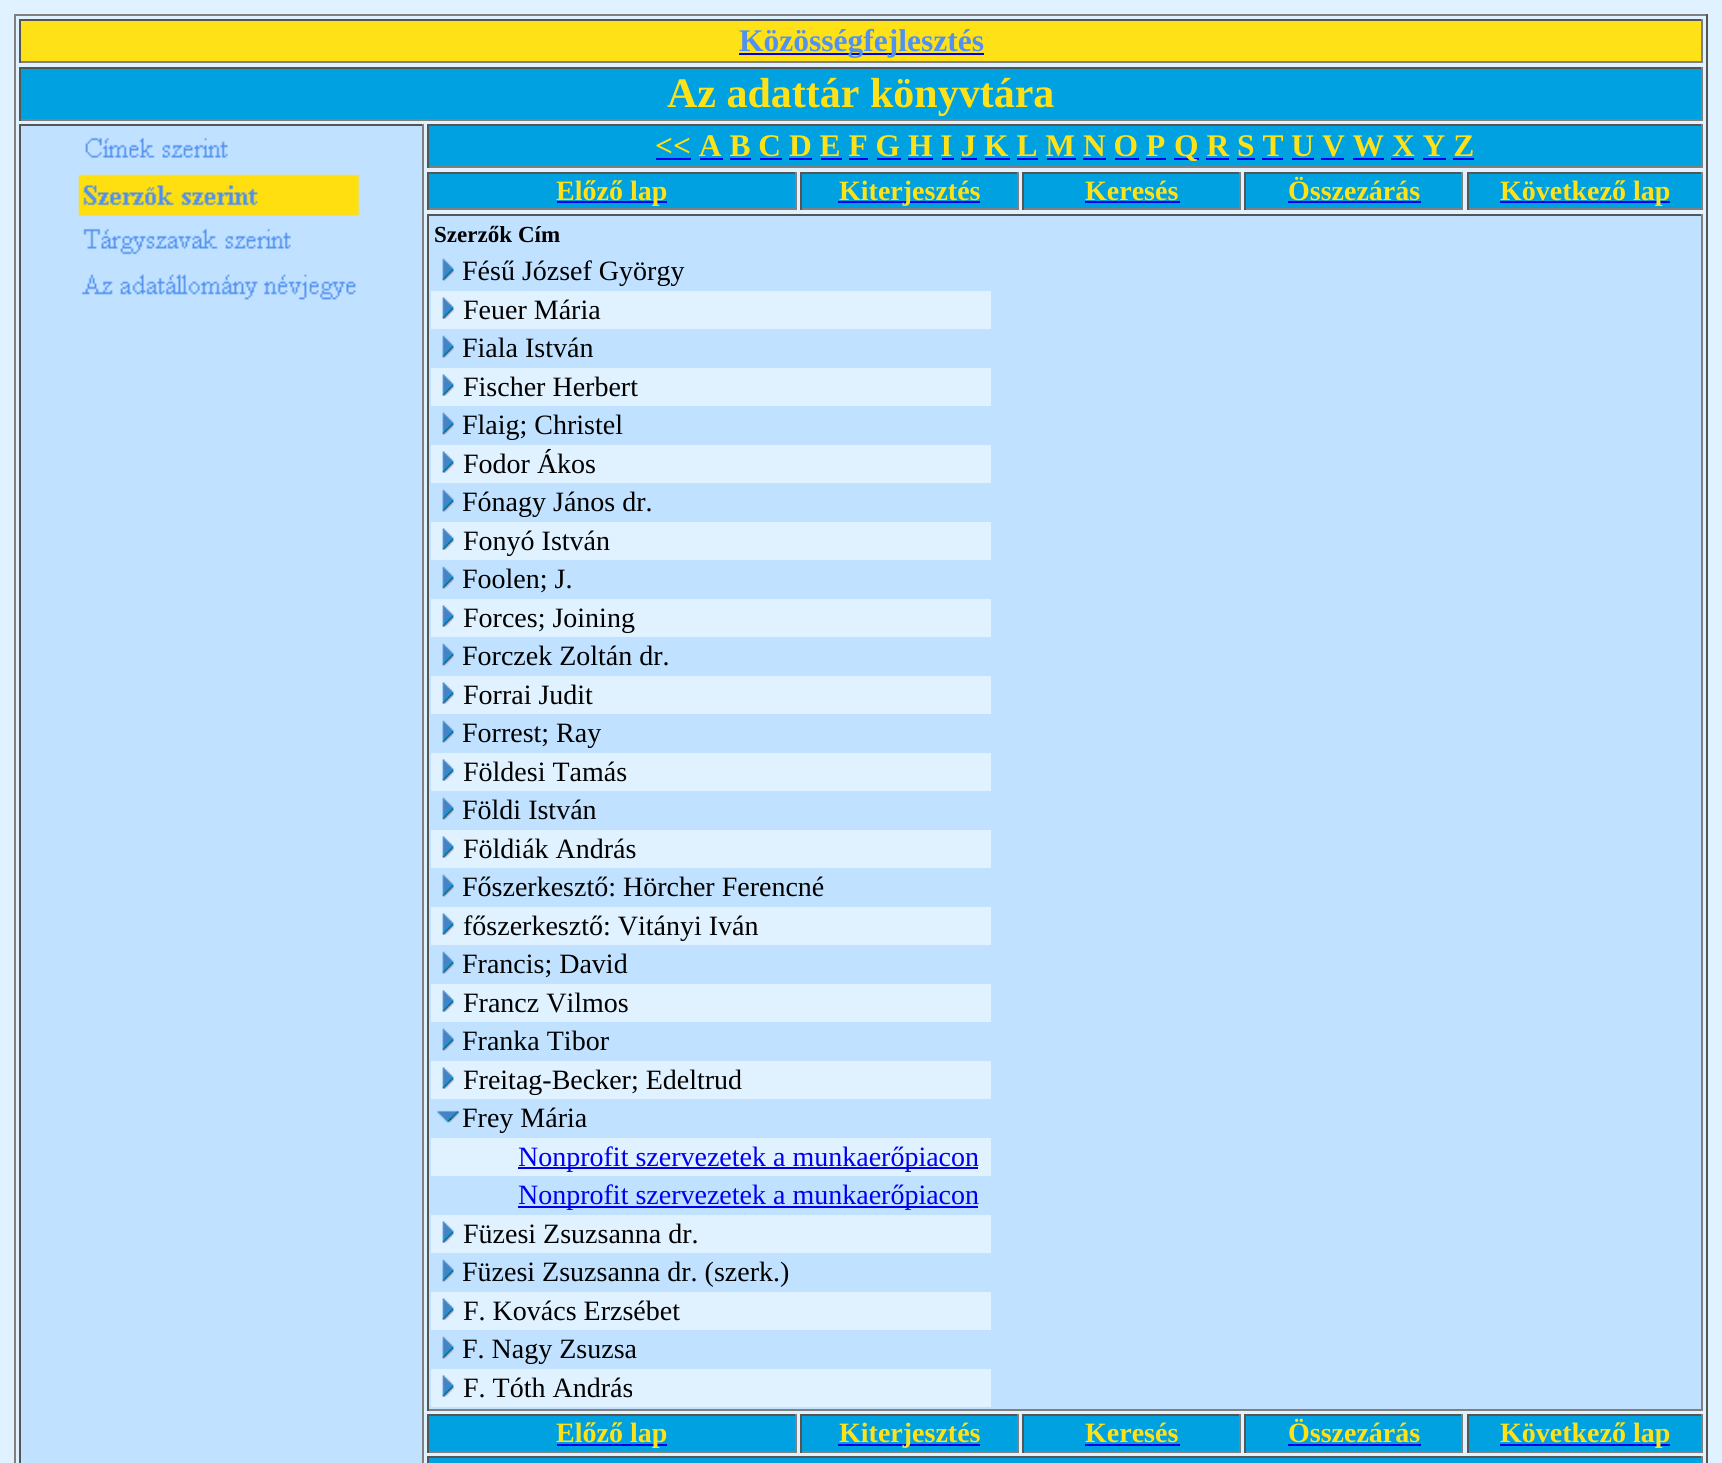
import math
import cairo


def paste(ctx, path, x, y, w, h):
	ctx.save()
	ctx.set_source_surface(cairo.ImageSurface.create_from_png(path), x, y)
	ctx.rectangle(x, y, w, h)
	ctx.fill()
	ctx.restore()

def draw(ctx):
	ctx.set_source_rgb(0.878, 0.945, 1)
	ctx.paint()
	ctx.set_source_rgb(0.502, 0.502, 0.502)
	ctx.rectangle(14, 14, 1694, 2)
	ctx.fill()
	ctx.set_source_rgb(0.333, 0.333, 0.333)
	ctx.rectangle(1706, 14, 2, 1449)
	ctx.fill()
	ctx.set_source_rgb(0.502, 0.502, 0.502)
	ctx.rectangle(14, 14, 2, 1449)
	ctx.fill()
	ctx.set_source_rgb(1, 0.882, 0.094)
	ctx.rectangle(21, 21, 1680, 40)
	ctx.fill()
	ctx.set_source_rgb(0.333, 0.333, 0.333)
	ctx.rectangle(19, 19, 1684, 2)
	ctx.fill()
	ctx.set_source_rgb(0.502, 0.502, 0.502)
	ctx.rectangle(1701, 19, 2, 44)
	ctx.rectangle(19, 61, 1684, 2)
	ctx.fill()
	ctx.set_source_rgb(0.333, 0.333, 0.333)
	ctx.rectangle(19, 19, 2, 44)
	ctx.fill()
	ctx.set_source_rgb(0, 0, 0.933)
	ctx.rectangle(739, 53, 245, 2)
	ctx.fill()
	ctx.select_font_face('Liberation Serif', cairo.FONT_SLANT_NORMAL, cairo.FONT_WEIGHT_BOLD)
	ctx.set_font_size(31.5)
	ctx.set_source_rgb(0.322, 0.569, 0.937)
	ctx.move_to(739, 51)
	ctx.show_text('Közösségfejlesztés')
	ctx.set_source_rgb(0, 0.631, 0.878)
	ctx.rectangle(21, 69, 1680, 50)
	ctx.fill()
	ctx.set_source_rgb(0.333, 0.333, 0.333)
	ctx.rectangle(19, 67, 1684, 2)
	ctx.fill()
	ctx.set_source_rgb(0.502, 0.502, 0.502)
	ctx.rectangle(1701, 67, 2, 54)
	ctx.rectangle(19, 119, 1684, 2)
	ctx.fill()
	ctx.set_source_rgb(0.333, 0.333, 0.333)
	ctx.rectangle(19, 67, 2, 54)
	ctx.fill()
	ctx.set_font_size(42)
	ctx.set_source_rgb(1, 0.882, 0.094)
	ctx.move_to(667, 107)
	ctx.show_text('Az adattár könyvtára')
	ctx.set_source_rgb(0.753, 0.882, 1)
	ctx.rectangle(21, 126, 401, 1337)
	ctx.fill()
	ctx.set_source_rgb(0.333, 0.333, 0.333)
	ctx.rectangle(19, 124, 405, 2)
	ctx.fill()
	ctx.set_source_rgb(0.502, 0.502, 0.502)
	ctx.rectangle(422, 124, 2, 1339)
	ctx.fill()
	ctx.set_source_rgb(0.333, 0.333, 0.333)
	ctx.rectangle(19, 124, 2, 1339)
	ctx.fill()
	paste(ctx, 'media/1.png', 78, 137, 282, 163)
	ctx.set_source_rgb(0, 0.631, 0.878)
	ctx.rectangle(429, 126, 1272, 40)
	ctx.fill()
	ctx.set_source_rgb(0.333, 0.333, 0.333)
	ctx.rectangle(427, 124, 1276, 2)
	ctx.fill()
	ctx.set_source_rgb(0.502, 0.502, 0.502)
	ctx.rectangle(1701, 124, 2, 44)
	ctx.rectangle(427, 166, 1276, 2)
	ctx.fill()
	ctx.set_source_rgb(0.333, 0.333, 0.333)
	ctx.rectangle(427, 124, 2, 44)
	ctx.fill()
	ctx.set_font_size(31.5)
	ctx.set_source_rgb(1, 0.882, 0.094)
	ctx.move_to(655, 156)
	ctx.show_text('<< A B C D E F G H I J K L M N O P')
	ctx.set_source_rgb(0, 0, 0.933)
	ctx.rectangle(656, 158, 35, 2)
	ctx.fill()
	ctx.rectangle(1174, 158, 25, 2)
	ctx.fill()
	ctx.set_source_rgb(1, 0.882, 0.094)
	ctx.move_to(1174, 156)
	ctx.show_text('Q R S T U V W X Y Z')
	ctx.set_source_rgb(0, 0, 0.933)
	ctx.rectangle(700, 158, 23, 2)
	ctx.rectangle(730, 158, 21, 2)
	ctx.rectangle(760, 158, 22, 2)
	ctx.rectangle(789, 158, 23, 2)
	ctx.rectangle(821, 158, 21, 2)
	ctx.rectangle(849, 158, 19, 2)
	ctx.rectangle(877, 158, 24, 2)
	ctx.rectangle(908, 158, 25, 2)
	ctx.rectangle(942, 158, 12, 2)
	ctx.rectangle(961, 158, 16, 2)
	ctx.rectangle(985, 158, 25, 2)
	ctx.rectangle(1017, 158, 21, 2)
	ctx.rectangle(1047, 158, 29, 2)
	ctx.rectangle(1083, 158, 23, 2)
	ctx.rectangle(1115, 158, 24, 2)
	ctx.rectangle(1146, 158, 20, 2)
	ctx.rectangle(1206, 158, 23, 2)
	ctx.rectangle(1237, 158, 18, 2)
	ctx.rectangle(1262, 158, 21, 2)
	ctx.rectangle(1292, 158, 22, 2)
	ctx.rectangle(1321, 158, 23, 2)
	ctx.rectangle(1353, 158, 31, 2)
	ctx.rectangle(1391, 158, 23, 2)
	ctx.rectangle(1423, 158, 23, 2)
	ctx.rectangle(1453, 158, 21, 2)
	ctx.fill()
	ctx.set_source_rgb(0, 0.631, 0.878)
	ctx.rectangle(429, 174, 366, 34)
	ctx.fill()
	ctx.set_source_rgb(0.333, 0.333, 0.333)
	ctx.rectangle(427, 172, 369, 2)
	ctx.fill()
	ctx.set_source_rgb(0.502, 0.502, 0.502)
	ctx.rectangle(795, 172, 2, 38)
	ctx.rectangle(427, 208, 369, 2)
	ctx.fill()
	ctx.set_source_rgb(0.333, 0.333, 0.333)
	ctx.rectangle(427, 172, 2, 38)
	ctx.fill()
	ctx.set_source_rgb(0, 0, 0.933)
	ctx.rectangle(557, 201, 110, 2)
	ctx.fill()
	ctx.set_font_size(28)
	ctx.set_source_rgb(1, 0.882, 0.094)
	ctx.move_to(556, 200)
	ctx.show_text('Előző lap')
	ctx.set_source_rgb(0, 0.631, 0.878)
	ctx.rectangle(802, 174, 215, 34)
	ctx.fill()
	ctx.set_source_rgb(0.333, 0.333, 0.333)
	ctx.rectangle(800, 172, 219, 2)
	ctx.fill()
	ctx.set_source_rgb(0.502, 0.502, 0.502)
	ctx.rectangle(1017, 172, 2, 38)
	ctx.rectangle(800, 208, 219, 2)
	ctx.fill()
	ctx.set_source_rgb(0.333, 0.333, 0.333)
	ctx.rectangle(800, 172, 2, 38)
	ctx.fill()
	ctx.set_source_rgb(0, 0, 0.933)
	ctx.rectangle(838, 201, 142, 2)
	ctx.fill()
	ctx.set_source_rgb(1, 0.882, 0.094)
	ctx.move_to(839, 200)
	ctx.show_text('Kiterjesztés')
	ctx.set_source_rgb(0, 0.631, 0.878)
	ctx.rectangle(1024, 174, 215, 34)
	ctx.fill()
	ctx.set_source_rgb(0.333, 0.333, 0.333)
	ctx.rectangle(1022, 172, 219, 2)
	ctx.fill()
	ctx.set_source_rgb(0.502, 0.502, 0.502)
	ctx.rectangle(1239, 172, 2, 38)
	ctx.rectangle(1022, 208, 219, 2)
	ctx.fill()
	ctx.set_source_rgb(0.333, 0.333, 0.333)
	ctx.rectangle(1022, 172, 2, 38)
	ctx.fill()
	ctx.set_source_rgb(1, 0.882, 0.094)
	ctx.move_to(1085, 200)
	ctx.show_text('Keresés')
	ctx.set_source_rgb(0, 0, 0.933)
	ctx.rectangle(1085, 201, 95, 2)
	ctx.fill()
	ctx.set_source_rgb(0, 0.631, 0.878)
	ctx.rectangle(1246, 174, 215, 34)
	ctx.fill()
	ctx.set_source_rgb(0.333, 0.333, 0.333)
	ctx.rectangle(1244, 172, 219, 2)
	ctx.fill()
	ctx.set_source_rgb(0.502, 0.502, 0.502)
	ctx.rectangle(1461, 172, 2, 38)
	ctx.rectangle(1244, 208, 219, 2)
	ctx.fill()
	ctx.set_source_rgb(0.333, 0.333, 0.333)
	ctx.rectangle(1244, 172, 2, 38)
	ctx.fill()
	ctx.set_source_rgb(1, 0.882, 0.094)
	ctx.move_to(1288, 200)
	ctx.show_text('Összezárás')
	ctx.set_source_rgb(0, 0, 0.933)
	ctx.rectangle(1288, 201, 133, 2)
	ctx.fill()
	ctx.set_source_rgb(0, 0.631, 0.878)
	ctx.rectangle(1469, 174, 232, 34)
	ctx.fill()
	ctx.set_source_rgb(0.333, 0.333, 0.333)
	ctx.rectangle(1467, 172, 236, 2)
	ctx.fill()
	ctx.set_source_rgb(0.502, 0.502, 0.502)
	ctx.rectangle(1701, 172, 2, 38)
	ctx.rectangle(1467, 208, 236, 2)
	ctx.fill()
	ctx.set_source_rgb(0.333, 0.333, 0.333)
	ctx.rectangle(1467, 172, 2, 38)
	ctx.fill()
	ctx.set_source_rgb(0, 0, 0.933)
	ctx.rectangle(1500, 201, 170, 2)
	ctx.fill()
	ctx.set_source_rgb(1, 0.882, 0.094)
	ctx.move_to(1500, 200)
	ctx.show_text('Következő lap')
	ctx.set_source_rgb(0.753, 0.882, 1)
	ctx.rectangle(429, 216, 1272, 1193)
	ctx.fill()
	ctx.set_source_rgb(0.333, 0.333, 0.333)
	ctx.rectangle(427, 214, 1276, 2)
	ctx.fill()
	ctx.set_source_rgb(0.502, 0.502, 0.502)
	ctx.rectangle(1701, 214, 2, 1197)
	ctx.rectangle(427, 1409, 1276, 2)
	ctx.fill()
	ctx.set_source_rgb(0.333, 0.333, 0.333)
	ctx.rectangle(427, 214, 2, 1197)
	ctx.fill()
	ctx.set_font_size(23)
	ctx.set_source_rgb(0, 0, 0)
	ctx.move_to(434, 242)
	ctx.show_text('Szerzők')
	ctx.move_to(518, 242)
	ctx.show_text('Cím')
	paste(ctx, 'media/2.png', 442, 258, 12, 23)
	ctx.select_font_face('Liberation Serif')
	ctx.set_font_size(28)
	ctx.move_to(462, 280)
	ctx.show_text('Fésű József György')
	ctx.set_source_rgb(0.878, 0.945, 1)
	ctx.rectangle(431, 291, 560, 38)
	ctx.fill()
	paste(ctx, 'media/3.png', 442, 297, 12, 22)
	ctx.set_source_rgb(0, 0, 0)
	ctx.move_to(463, 319)
	ctx.show_text('Feuer Mária')
	paste(ctx, 'media/2.png', 442, 335, 12, 23)
	ctx.move_to(462, 357)
	ctx.show_text('Fiala István')
	ctx.set_source_rgb(0.878, 0.945, 1)
	ctx.rectangle(431, 368, 560, 38)
	ctx.fill()
	paste(ctx, 'media/3.png', 442, 374, 12, 22)
	ctx.set_source_rgb(0, 0, 0)
	ctx.move_to(463, 396)
	ctx.show_text('Fischer Herbert')
	paste(ctx, 'media/2.png', 442, 412, 12, 23)
	ctx.move_to(462, 434)
	ctx.show_text('Flaig; Christel')
	ctx.set_source_rgb(0.878, 0.945, 1)
	ctx.rectangle(431, 445, 560, 38)
	ctx.fill()
	paste(ctx, 'media/3.png', 442, 451, 12, 22)
	ctx.set_source_rgb(0, 0, 0)
	ctx.move_to(463, 473)
	ctx.show_text('Fodor Ákos')
	paste(ctx, 'media/2.png', 442, 489, 12, 23)
	ctx.move_to(462, 511)
	ctx.show_text('Fónagy János dr.')
	ctx.set_source_rgb(0.878, 0.945, 1)
	ctx.rectangle(431, 522, 560, 38)
	ctx.fill()
	paste(ctx, 'media/3.png', 442, 528, 12, 22)
	ctx.set_source_rgb(0, 0, 0)
	ctx.move_to(463, 550)
	ctx.show_text('Fonyó István')
	paste(ctx, 'media/2.png', 442, 566, 12, 23)
	ctx.move_to(462, 588)
	ctx.show_text('Foolen; J.')
	ctx.set_source_rgb(0.878, 0.945, 1)
	ctx.rectangle(431, 599, 560, 38)
	ctx.fill()
	paste(ctx, 'media/3.png', 442, 605, 12, 22)
	ctx.set_source_rgb(0, 0, 0)
	ctx.move_to(463, 627)
	ctx.show_text('Forces; Joining')
	paste(ctx, 'media/2.png', 442, 643, 12, 23)
	ctx.move_to(462, 665)
	ctx.show_text('Forczek Zoltán dr.')
	ctx.set_source_rgb(0.878, 0.945, 1)
	ctx.rectangle(431, 676, 560, 38)
	ctx.fill()
	paste(ctx, 'media/3.png', 442, 682, 12, 22)
	ctx.set_source_rgb(0, 0, 0)
	ctx.move_to(463, 704)
	ctx.show_text('Forrai Judit')
	paste(ctx, 'media/2.png', 442, 720, 12, 23)
	ctx.move_to(462, 742)
	ctx.show_text('Forrest; Ray')
	ctx.set_source_rgb(0.878, 0.945, 1)
	ctx.rectangle(431, 753, 560, 38)
	ctx.fill()
	paste(ctx, 'media/3.png', 442, 759, 12, 22)
	ctx.set_source_rgb(0, 0, 0)
	ctx.move_to(463, 781)
	ctx.show_text('Földesi Tamás')
	paste(ctx, 'media/2.png', 442, 797, 12, 23)
	ctx.move_to(462, 819)
	ctx.show_text('Földi István')
	ctx.set_source_rgb(0.878, 0.945, 1)
	ctx.rectangle(431, 830, 560, 38)
	ctx.fill()
	paste(ctx, 'media/3.png', 442, 836, 12, 22)
	ctx.set_source_rgb(0, 0, 0)
	ctx.move_to(463, 858)
	ctx.show_text('Földiák András')
	paste(ctx, 'media/2.png', 442, 874, 12, 23)
	ctx.move_to(462, 896)
	ctx.show_text('Főszerkesztő: Hörcher Ferencné')
	ctx.set_source_rgb(0.878, 0.945, 1)
	ctx.rectangle(431, 907, 560, 38)
	ctx.fill()
	paste(ctx, 'media/3.png', 442, 913, 12, 22)
	ctx.set_source_rgb(0, 0, 0)
	ctx.move_to(463, 935)
	ctx.show_text('főszerkesztő: Vitányi Iván')
	paste(ctx, 'media/2.png', 442, 951, 12, 23)
	ctx.move_to(462, 973)
	ctx.show_text('Francis; David')
	ctx.set_source_rgb(0.878, 0.945, 1)
	ctx.rectangle(431, 984, 560, 38)
	ctx.fill()
	paste(ctx, 'media/3.png', 442, 990, 12, 22)
	ctx.set_source_rgb(0, 0, 0)
	ctx.move_to(463, 1012)
	ctx.show_text('Francz Vilmos')
	paste(ctx, 'media/2.png', 442, 1028, 12, 23)
	ctx.move_to(462, 1050)
	ctx.show_text('Franka Tibor')
	ctx.set_source_rgb(0.878, 0.945, 1)
	ctx.rectangle(431, 1061, 560, 38)
	ctx.fill()
	paste(ctx, 'media/3.png', 442, 1067, 12, 22)
	ctx.set_source_rgb(0, 0, 0)
	ctx.move_to(463, 1089)
	ctx.show_text('Freitag-Becker; Edeltrud')
	paste(ctx, 'media/4.png', 437, 1110, 22, 13)
	ctx.move_to(462, 1127)
	ctx.show_text('Frey Mária')
	ctx.set_source_rgb(0.878, 0.945, 1)
	ctx.rectangle(431, 1138, 560, 38)
	ctx.fill()
	ctx.set_source_rgb(0, 0, 0.933)
	ctx.rectangle(518, 1167, 460, 2)
	ctx.fill()
	ctx.move_to(518, 1166)
	ctx.show_text('Nonprofit szervezetek a munkaerőpiacon')
	ctx.rectangle(518, 1206, 460, 2)
	ctx.fill()
	ctx.move_to(518, 1204)
	ctx.show_text('Nonprofit szervezetek a munkaerőpiacon')
	ctx.set_source_rgb(0.878, 0.945, 1)
	ctx.rectangle(431, 1215, 560, 38)
	ctx.fill()
	paste(ctx, 'media/3.png', 442, 1221, 12, 22)
	ctx.set_source_rgb(0, 0, 0)
	ctx.move_to(463, 1243)
	ctx.show_text('Füzesi Zsuzsanna dr.')
	paste(ctx, 'media/2.png', 442, 1259, 12, 23)
	ctx.move_to(462, 1281)
	ctx.show_text('Füzesi Zsuzsanna dr. (szerk.)')
	ctx.set_source_rgb(0.878, 0.945, 1)
	ctx.rectangle(431, 1292, 560, 38)
	ctx.fill()
	paste(ctx, 'media/3.png', 442, 1298, 12, 22)
	ctx.set_source_rgb(0, 0, 0)
	ctx.move_to(463, 1320)
	ctx.show_text('F. Kovács Erzsébet')
	paste(ctx, 'media/2.png', 442, 1336, 12, 23)
	ctx.move_to(462, 1358)
	ctx.show_text('F. Nagy Zsuzsa')
	ctx.set_source_rgb(0.878, 0.945, 1)
	ctx.rectangle(431, 1369, 560, 38)
	ctx.fill()
	paste(ctx, 'media/3.png', 442, 1375, 12, 22)
	ctx.set_source_rgb(0, 0, 0)
	ctx.move_to(463, 1397)
	ctx.show_text('F. Tóth András')
	ctx.set_source_rgb(0, 0.631, 0.878)
	ctx.rectangle(429, 1416, 366, 35)
	ctx.fill()
	ctx.set_source_rgb(0.333, 0.333, 0.333)
	ctx.rectangle(427, 1414, 369, 2)
	ctx.fill()
	ctx.set_source_rgb(0.502, 0.502, 0.502)
	ctx.rectangle(795, 1414, 2, 39)
	ctx.rectangle(427, 1451, 369, 2)
	ctx.fill()
	ctx.set_source_rgb(0.333, 0.333, 0.333)
	ctx.rectangle(427, 1414, 2, 39)
	ctx.fill()
	ctx.set_source_rgb(0, 0, 0.933)
	ctx.rectangle(557, 1444, 110, 2)
	ctx.fill()
	ctx.select_font_face('Liberation Serif', cairo.FONT_SLANT_NORMAL, cairo.FONT_WEIGHT_BOLD)
	ctx.set_source_rgb(1, 0.882, 0.094)
	ctx.move_to(556, 1442)
	ctx.show_text('Előző lap')
	ctx.set_source_rgb(0, 0.631, 0.878)
	ctx.rectangle(802, 1416, 215, 35)
	ctx.fill()
	ctx.set_source_rgb(0.333, 0.333, 0.333)
	ctx.rectangle(800, 1414, 219, 2)
	ctx.fill()
	ctx.set_source_rgb(0.502, 0.502, 0.502)
	ctx.rectangle(1017, 1414, 2, 39)
	ctx.rectangle(800, 1451, 219, 2)
	ctx.fill()
	ctx.set_source_rgb(0.333, 0.333, 0.333)
	ctx.rectangle(800, 1414, 2, 39)
	ctx.fill()
	ctx.set_source_rgb(0, 0, 0.933)
	ctx.rectangle(838, 1444, 142, 2)
	ctx.fill()
	ctx.set_source_rgb(1, 0.882, 0.094)
	ctx.move_to(839, 1442)
	ctx.show_text('Kiterjesztés')
	ctx.set_source_rgb(0, 0.631, 0.878)
	ctx.rectangle(1024, 1416, 215, 35)
	ctx.fill()
	ctx.set_source_rgb(0.333, 0.333, 0.333)
	ctx.rectangle(1022, 1414, 219, 2)
	ctx.fill()
	ctx.set_source_rgb(0.502, 0.502, 0.502)
	ctx.rectangle(1239, 1414, 2, 39)
	ctx.rectangle(1022, 1451, 219, 2)
	ctx.fill()
	ctx.set_source_rgb(0.333, 0.333, 0.333)
	ctx.rectangle(1022, 1414, 2, 39)
	ctx.fill()
	ctx.set_source_rgb(1, 0.882, 0.094)
	ctx.move_to(1085, 1442)
	ctx.show_text('Keresés')
	ctx.set_source_rgb(0, 0, 0.933)
	ctx.rectangle(1085, 1444, 95, 2)
	ctx.fill()
	ctx.set_source_rgb(0, 0.631, 0.878)
	ctx.rectangle(1246, 1416, 215, 35)
	ctx.fill()
	ctx.set_source_rgb(0.333, 0.333, 0.333)
	ctx.rectangle(1244, 1414, 219, 2)
	ctx.fill()
	ctx.set_source_rgb(0.502, 0.502, 0.502)
	ctx.rectangle(1461, 1414, 2, 39)
	ctx.rectangle(1244, 1451, 219, 2)
	ctx.fill()
	ctx.set_source_rgb(0.333, 0.333, 0.333)
	ctx.rectangle(1244, 1414, 2, 39)
	ctx.fill()
	ctx.set_source_rgb(1, 0.882, 0.094)
	ctx.move_to(1288, 1442)
	ctx.show_text('Összezárás')
	ctx.set_source_rgb(0, 0, 0.933)
	ctx.rectangle(1288, 1444, 133, 2)
	ctx.fill()
	ctx.set_source_rgb(0, 0.631, 0.878)
	ctx.rectangle(1469, 1416, 232, 35)
	ctx.fill()
	ctx.set_source_rgb(0.333, 0.333, 0.333)
	ctx.rectangle(1467, 1414, 236, 2)
	ctx.fill()
	ctx.set_source_rgb(0.502, 0.502, 0.502)
	ctx.rectangle(1701, 1414, 2, 39)
	ctx.rectangle(1467, 1451, 236, 2)
	ctx.fill()
	ctx.set_source_rgb(0.333, 0.333, 0.333)
	ctx.rectangle(1467, 1414, 2, 39)
	ctx.fill()
	ctx.set_source_rgb(0, 0, 0.933)
	ctx.rectangle(1500, 1444, 170, 2)
	ctx.fill()
	ctx.set_source_rgb(1, 0.882, 0.094)
	ctx.move_to(1500, 1442)
	ctx.show_text('Következő lap')
	ctx.set_source_rgb(0, 0.631, 0.878)
	ctx.rectangle(427, 1458, 1276, 5)
	ctx.fill()
	ctx.set_source_rgb(0.333, 0.333, 0.333)
	ctx.rectangle(427, 1456, 1276, 2)
	ctx.fill()
	ctx.set_source_rgb(0.502, 0.502, 0.502)
	ctx.rectangle(1701, 1456, 2, 7)
	ctx.fill()
	ctx.set_source_rgb(0.333, 0.333, 0.333)
	ctx.rectangle(427, 1456, 2, 7)
	ctx.fill()


surface = cairo.ImageSurface(cairo.FORMAT_RGB24, 1722, 1463)
ctx = cairo.Context(surface)
options = cairo.FontOptions()
options.set_hint_metrics(cairo.HINT_METRICS_OFF)
options.set_hint_style(cairo.HINT_STYLE_NONE)
ctx.set_font_options(options)
ctx.set_miter_limit(4)
draw(ctx)
surface.write_to_png('image.png')
